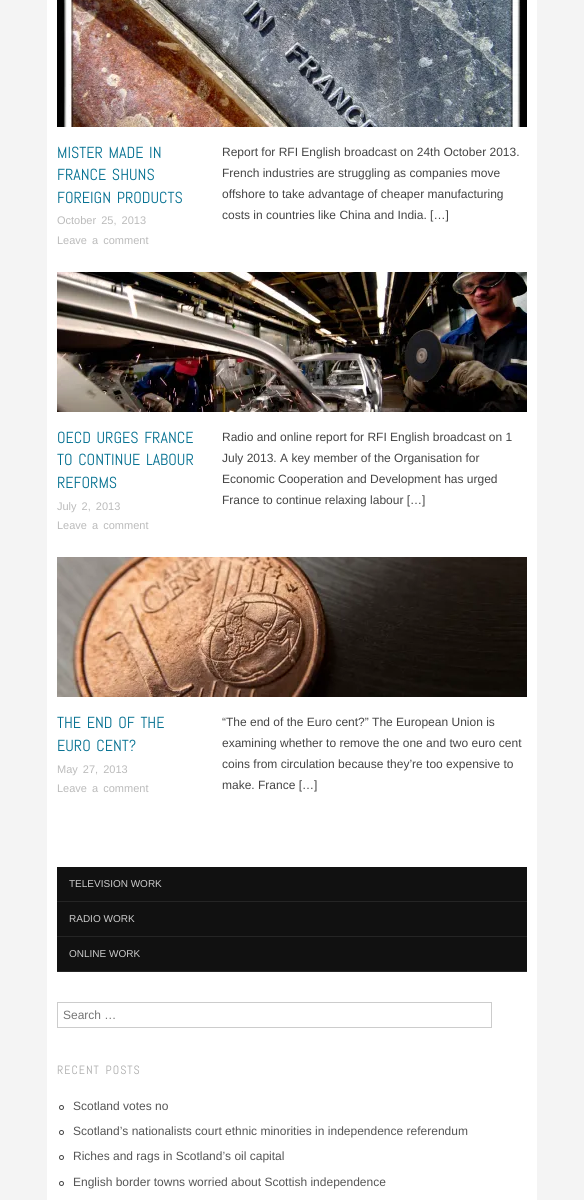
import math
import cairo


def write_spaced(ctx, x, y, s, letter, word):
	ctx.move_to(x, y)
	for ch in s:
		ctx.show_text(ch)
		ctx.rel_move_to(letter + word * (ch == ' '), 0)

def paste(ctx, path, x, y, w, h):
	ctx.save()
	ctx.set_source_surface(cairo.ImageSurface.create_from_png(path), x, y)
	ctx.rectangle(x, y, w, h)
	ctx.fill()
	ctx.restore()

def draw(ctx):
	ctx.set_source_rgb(0.957, 0.957, 0.957)
	ctx.paint()
	ctx.set_source_rgb(1, 1, 1)
	ctx.rectangle(47, 0, 490, 1200)
	ctx.fill()
	paste(ctx, 'media/1.png', 57, 0, 470, 127)
	ctx.select_font_face('Abel')
	ctx.set_font_size(16)
	ctx.set_source_rgb(0.008, 0.435, 0.565)
	for x, y, s in [
		(57, 158, 'MISTER MADE IN'),
		(57, 180, 'FRANCE SHUNS'),
		(57, 203, 'FOREIGN PRODUCTS'),
	]:
		write_spaced(ctx, x, y, s, 0, 2)
	ctx.select_font_face('Liberation Sans')
	ctx.set_font_size(11)
	ctx.set_source_rgb(0.733, 0.733, 0.733)
	write_spaced(ctx, 57, 224, 'October 25, 2013', 0, 2)
	write_spaced(ctx, 57, 244, 'Leave a comment', 0, 2)
	ctx.set_font_size(12)
	ctx.set_source_rgb(0.267, 0.267, 0.267)
	for x, y, s in [
		(222, 156, 'Report for RFI English broadcast on 24th October 2013.'),
		(222, 177, 'French industries are struggling as companies move'),
		(222, 198, 'offshore to take advantage of cheaper manufacturing'),
		(222, 219, 'costs in countries like China and India. […]'),
	]:
		ctx.move_to(x, y)
		ctx.show_text(s)
	paste(ctx, 'media/2.png', 57, 272, 470, 140)
	ctx.select_font_face('Abel')
	ctx.set_font_size(16)
	ctx.set_source_rgb(0.008, 0.435, 0.565)
	write_spaced(ctx, 57, 443, 'OECD URGES FRANCE', 0, 2)
	write_spaced(ctx, 57, 465, 'TO CONTINUE LABOUR', 0, 2)
	ctx.move_to(57, 488)
	ctx.show_text('REFORMS')
	ctx.select_font_face('Liberation Sans')
	ctx.set_font_size(11)
	ctx.set_source_rgb(0.733, 0.733, 0.733)
	write_spaced(ctx, 57, 510, 'July 2, 2013', 0, 2)
	write_spaced(ctx, 57, 529, 'Leave a comment', 0, 2)
	ctx.set_font_size(12)
	ctx.set_source_rgb(0.267, 0.267, 0.267)
	for x, y, s in [
		(222, 441, 'Radio and online report for RFI English broadcast on 1'),
		(222, 462, 'July 2013. A key member of the Organisation for'),
		(222, 483, 'Economic Cooperation and Development has urged'),
		(222, 504, 'France to continue relaxing labour […]'),
	]:
		ctx.move_to(x, y)
		ctx.show_text(s)
	paste(ctx, 'media/3.png', 57, 557, 470, 140)
	ctx.select_font_face('Abel')
	ctx.set_font_size(16)
	ctx.set_source_rgb(0.008, 0.435, 0.565)
	write_spaced(ctx, 57, 728, 'THE END OF THE', 0, 2)
	write_spaced(ctx, 57, 751, 'EURO CENT?', 0, 2)
	ctx.select_font_face('Liberation Sans')
	ctx.set_font_size(11)
	ctx.set_source_rgb(0.733, 0.733, 0.733)
	write_spaced(ctx, 57, 773, 'May 27, 2013', 0, 2)
	write_spaced(ctx, 57, 792, 'Leave a comment', 0, 2)
	ctx.set_font_size(12)
	ctx.set_source_rgb(0.267, 0.267, 0.267)
	for x, y, s in [
		(222, 726, '“The end of the Euro cent?” The European Union is'),
		(222, 747, 'examining whether to remove the one and two euro cent'),
		(222, 768, 'coins from circulation because they’re too expensive to'),
		(222, 789, 'make. France […]'),
	]:
		ctx.move_to(x, y)
		ctx.show_text(s)
	ctx.set_source_rgb(0.067, 0.067, 0.067)
	ctx.rectangle(57, 867, 470, 104)
	ctx.fill()
	ctx.set_source_rgb(0.145, 0.145, 0.145)
	ctx.rectangle(57, 901, 470, 1)
	ctx.fill()
	ctx.set_font_size(10)
	ctx.set_source_rgb(0.8, 0.8, 0.8)
	ctx.move_to(69, 887)
	ctx.show_text('TELEVISION WORK')
	ctx.set_source_rgb(0.145, 0.145, 0.145)
	ctx.rectangle(57, 936, 470, 1)
	ctx.fill()
	ctx.set_source_rgb(0.8, 0.8, 0.8)
	ctx.move_to(69, 922)
	ctx.show_text('RADIO WORK')
	ctx.set_source_rgb(0.145, 0.145, 0.145)
	ctx.rectangle(57, 971, 470, 1)
	ctx.fill()
	ctx.set_source_rgb(0.8, 0.8, 0.8)
	ctx.move_to(69, 957)
	ctx.show_text('ONLINE WORK')
	ctx.rectangle(57.5, 1002.5, 434, 25)
	ctx.set_line_width(1)
	ctx.stroke()
	ctx.set_font_size(12)
	ctx.set_source_rgb(0.459, 0.459, 0.459)
	ctx.move_to(63, 1019)
	ctx.show_text('Search …')
	ctx.select_font_face('Abel')
	ctx.set_source_rgb(0.667, 0.667, 0.667)
	write_spaced(ctx, 57, 1074, 'RECENT POSTS', 1, 2)
	ctx.new_path()
	ctx.arc(61.5, 1107.5, 2, 0, 2 * math.pi)
	ctx.set_source_rgb(0.267, 0.267, 0.267)
	ctx.stroke()
	ctx.select_font_face('Liberation Sans')
	ctx.set_source_rgb(0.333, 0.333, 0.333)
	ctx.move_to(73, 1110)
	ctx.show_text('Scotland votes no')
	ctx.new_path()
	ctx.arc(61.5, 1132.5, 2, 0, 2 * math.pi)
	ctx.set_source_rgb(0.267, 0.267, 0.267)
	ctx.stroke()
	ctx.set_source_rgb(0.333, 0.333, 0.333)
	ctx.move_to(73, 1135)
	ctx.show_text('Scotland’s nationalists court ethnic minorities in independence referendum')
	ctx.new_path()
	ctx.arc(61.5, 1157.5, 2, 0, 2 * math.pi)
	ctx.set_source_rgb(0.267, 0.267, 0.267)
	ctx.stroke()
	ctx.set_source_rgb(0.333, 0.333, 0.333)
	ctx.move_to(73, 1160)
	ctx.show_text('Riches and rags in Scotland’s oil capital')
	ctx.new_path()
	ctx.arc(61.5, 1183.5, 2, 0, 2 * math.pi)
	ctx.set_source_rgb(0.267, 0.267, 0.267)
	ctx.stroke()
	ctx.set_source_rgb(0.333, 0.333, 0.333)
	ctx.move_to(73, 1186)
	ctx.show_text('English border towns worried about Scottish independence')


surface = cairo.ImageSurface(cairo.FORMAT_RGB24, 584, 1200)
ctx = cairo.Context(surface)
options = cairo.FontOptions()
options.set_hint_metrics(cairo.HINT_METRICS_OFF)
options.set_hint_style(cairo.HINT_STYLE_NONE)
ctx.set_font_options(options)
ctx.set_miter_limit(4)
draw(ctx)
surface.write_to_png('image.png')
